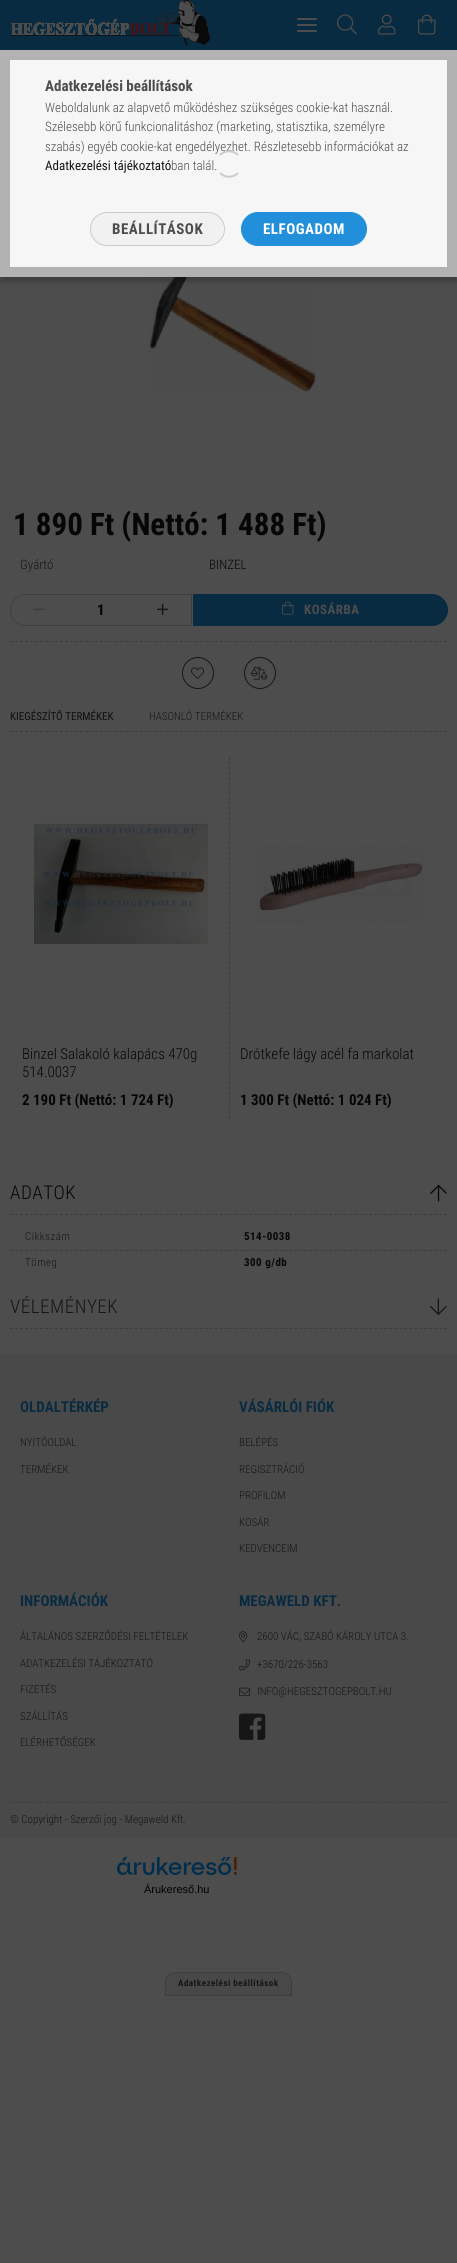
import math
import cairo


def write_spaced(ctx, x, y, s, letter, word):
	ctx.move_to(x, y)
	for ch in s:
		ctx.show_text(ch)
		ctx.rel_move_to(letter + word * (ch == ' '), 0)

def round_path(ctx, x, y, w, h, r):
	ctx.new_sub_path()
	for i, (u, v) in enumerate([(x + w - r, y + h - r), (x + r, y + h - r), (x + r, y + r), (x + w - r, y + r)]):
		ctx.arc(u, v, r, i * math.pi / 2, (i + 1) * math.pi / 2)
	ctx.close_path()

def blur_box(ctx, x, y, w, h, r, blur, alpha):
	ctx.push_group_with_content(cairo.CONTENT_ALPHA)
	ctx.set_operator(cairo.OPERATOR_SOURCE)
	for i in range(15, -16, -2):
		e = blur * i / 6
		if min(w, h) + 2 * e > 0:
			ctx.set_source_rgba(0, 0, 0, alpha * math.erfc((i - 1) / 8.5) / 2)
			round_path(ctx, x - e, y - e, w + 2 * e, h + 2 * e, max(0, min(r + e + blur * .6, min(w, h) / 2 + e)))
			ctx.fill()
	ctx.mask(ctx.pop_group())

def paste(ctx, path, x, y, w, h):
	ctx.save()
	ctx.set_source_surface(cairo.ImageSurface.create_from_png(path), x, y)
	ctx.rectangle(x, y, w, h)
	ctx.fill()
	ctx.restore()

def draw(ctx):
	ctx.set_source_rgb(0.302, 0.302, 0.302)
	ctx.paint()
	ctx.set_source_rgb(0.039, 0.169, 0.255)
	ctx.rectangle(0, 0, 457, 50)
	ctx.fill()
	paste(ctx, 'media/1.png', 10, 0, 200, 47)
	paste(ctx, 'media/5.png', 149, 277, 168, 118)
	ctx.set_source_rgb(0, 0, 0)
	blur_box(ctx, 0, 55, 457, 227, 0, 2.5, 0.2)
	ctx.rectangle(5, 55, 447, 217)
	ctx.set_source_rgb(0.698, 0.698, 0.698)
	ctx.set_line_width(10)
	ctx.stroke()
	ctx.set_source_rgb(0.961, 0.961, 0.961)
	ctx.rectangle(10, 60, 437, 207)
	ctx.fill()
	ctx.select_font_face('Roboto Condensed', cairo.FONT_SLANT_NORMAL, cairo.FONT_WEIGHT_BOLD)
	ctx.set_font_size(15)
	ctx.set_source_rgb(0.302, 0.302, 0.302)
	ctx.move_to(45, 91)
	ctx.show_text('Adatkezelési beállítások')
	ctx.select_font_face('Roboto Condensed Light')
	ctx.set_font_size(13)
	for x, y, s in [
		(45, 112, 'Weboldalunk az alapvető működéshez szükséges cookie-kat használ.'),
		(45, 131, 'Szélesebb körű funkcionalitáshoz (marketing, statisztika, személyre'),
		(45, 151, 'szabás) egyéb cookie-kat engedélyezhet. Részletesebb információkat az'),
	]:
		ctx.move_to(x, y)
		ctx.show_text(s)
	ctx.select_font_face('Roboto Condensed')
	ctx.set_source_rgb(0.086, 0.086, 0.086)
	ctx.move_to(45, 170)
	ctx.show_text('Adatkezelési tájékoztató')
	ctx.select_font_face('Roboto Condensed Light')
	ctx.set_source_rgb(0.302, 0.302, 0.302)
	ctx.move_to(171, 170)
	ctx.show_text('ban talál.')
	ctx.set_source_rgb(0.945, 0.945, 0.945)
	round_path(ctx, 90.5, 212.5, 134, 33, 16.5)
	ctx.fill_preserve()
	ctx.set_source_rgb(0.8, 0.8, 0.8)
	ctx.set_line_width(1)
	ctx.stroke()
	ctx.select_font_face('Roboto Condensed', cairo.FONT_SLANT_NORMAL, cairo.FONT_WEIGHT_BOLD)
	ctx.set_font_size(15)
	ctx.set_source_rgb(0.302, 0.302, 0.302)
	write_spaced(ctx, 112, 234, 'BEÁLLÍTÁSOK', 0.5, 0)
	ctx.set_source_rgb(0.129, 0.561, 0.851)
	round_path(ctx, 241.5, 212.5, 125, 33, 16.5)
	ctx.fill_preserve()
	ctx.stroke()
	ctx.set_source_rgb(1, 1, 1)
	write_spaced(ctx, 263, 234, 'ELFOGADOM', 0.5, 0)
	ctx.new_path()
	ctx.move_to(220, 155)
	ctx.curve_to(225, 150, 233, 150, 238, 155)
	ctx.move_to(238, 173)
	ctx.curve_to(233, 178, 225, 178, 220, 173)
	ctx.set_source_rgb(0.8, 0.8, 0.8)
	ctx.set_line_width(2)
	ctx.stroke()
	ctx.set_source_rgb(0.302, 0.302, 0.302)
	round_path(ctx, 297, 18, 20, 2, 1)
	ctx.fill()
	round_path(ctx, 297, 24, 20, 2, 1)
	ctx.fill()
	round_path(ctx, 297, 30, 20, 2, 1)
	ctx.fill()
	paste(ctx, 'media/2.png', 337, 14, 20, 21)
	paste(ctx, 'media/3.png', 378, 14, 18, 21)
	paste(ctx, 'media/4.png', 418, 14, 18, 21)
	ctx.set_font_size(31)
	ctx.set_source_rgb(0.027, 0.027, 0.027)
	ctx.move_to(13, 535)
	ctx.show_text('1 890 Ft (Nettó: 1 488 Ft)')
	ctx.select_font_face('Roboto Condensed Light')
	ctx.set_font_size(13)
	ctx.set_source_rgb(0.086, 0.086, 0.086)
	ctx.move_to(20, 569)
	ctx.show_text('Gyártó')
	ctx.set_source_rgb(0.027, 0.027, 0.027)
	ctx.move_to(209, 569)
	ctx.show_text('BINZEL')
	ctx.new_path()
	ctx.move_to(26, 594.5)
	ctx.line_to(191.5, 594.5)
	ctx.line_to(191.5, 625.5)
	ctx.line_to(26, 625.5)
	ctx.curve_to(17.5, 625.5, 10.5, 618.5, 10.5, 610)
	ctx.curve_to(10.5, 601.5, 17.5, 594.5, 26, 594.5)
	ctx.close_path()
	ctx.set_source_rgb(0.239, 0.239, 0.239)
	ctx.set_line_width(1)
	ctx.stroke()
	ctx.set_source_rgb(0.302, 0.302, 0.302)
	ctx.new_path()
	ctx.move_to(26, 595)
	ctx.line_to(68, 595)
	ctx.line_to(68, 625)
	ctx.line_to(26, 625)
	ctx.curve_to(17.5, 625, 11, 618.5, 11, 610)
	ctx.curve_to(11, 601.5, 17.5, 595, 26, 595)
	ctx.close_path()
	ctx.fill()
	paste(ctx, 'media/6.png', 33, 608, 12, 2)
	ctx.select_font_face('Roboto Condensed', cairo.FONT_SLANT_NORMAL, cairo.FONT_WEIGHT_BOLD)
	ctx.set_font_size(15)
	ctx.set_source_rgb(0, 0, 0)
	ctx.move_to(97, 615)
	ctx.show_text('1')
	paste(ctx, 'media/7.png', 157, 603, 12, 12)
	ctx.set_source_rgb(0.039, 0.169, 0.255)
	ctx.new_path()
	ctx.move_to(193.5, 594.5)
	ctx.line_to(432, 594.5)
	ctx.curve_to(440.5, 594.5, 447.5, 601.5, 447.5, 610)
	ctx.curve_to(447.5, 618.5, 440.5, 625.5, 432, 625.5)
	ctx.line_to(193.5, 625.5)
	ctx.close_path()
	ctx.fill_preserve()
	ctx.stroke()
	paste(ctx, 'media/8.png', 282, 601, 12, 14)
	ctx.set_font_size(13)
	ctx.set_source_rgb(0.302, 0.302, 0.302)
	write_spaced(ctx, 304, 614, 'KOSÁRBA', 0.5, 0)
	ctx.new_path()
	ctx.move_to(10, 641.5)
	ctx.line_to(447, 641.5)
	ctx.set_source_rgb(0.239, 0.239, 0.239)
	ctx.set_dash([3, 1.99])
	ctx.stroke()
	ctx.arc(198, 673, 15.5, 0, 2 * math.pi)
	ctx.set_source_rgb(0.086, 0.086, 0.086)
	ctx.set_dash([])
	ctx.stroke()
	paste(ctx, 'media/9.png', 191, 667, 13, 12)
	ctx.arc(260, 673, 15.5, 0, 2 * math.pi)
	ctx.stroke()
	paste(ctx, 'media/10.png', 251, 666, 17, 14)
	ctx.new_path()
	ctx.move_to(10, 731.5)
	ctx.line_to(447, 731.5)
	ctx.set_source_rgb(0.239, 0.239, 0.239)
	ctx.set_dash([3, 1.99])
	ctx.stroke()
	ctx.select_font_face('Roboto Condensed')
	ctx.set_font_size(11)
	ctx.set_source_rgb(0.059, 0.059, 0.059)
	ctx.move_to(10, 720)
	ctx.show_text('KIEGÉSZÍTŐ TERMÉKEK')
	ctx.select_font_face('Roboto Condensed Light')
	ctx.set_source_rgb(0.086, 0.086, 0.086)
	ctx.move_to(149, 720)
	ctx.show_text('HASONLÓ TERMÉKEK')
	ctx.new_path()
	ctx.move_to(229.5, 757)
	ctx.line_to(229.5, 1119)
	ctx.set_source_rgb(0.239, 0.239, 0.239)
	ctx.stroke()
	paste(ctx, 'media/11.png', 34, 815, 174, 129)
	ctx.set_font_size(15)
	ctx.set_source_rgb(0.027, 0.027, 0.027)
	ctx.move_to(22, 1059)
	ctx.show_text('Binzel Salakoló kalapács 470g')
	ctx.move_to(22, 1077)
	ctx.show_text('514.0037')
	ctx.select_font_face('Roboto Condensed', cairo.FONT_SLANT_NORMAL, cairo.FONT_WEIGHT_BOLD)
	ctx.move_to(22, 1105)
	ctx.show_text('2 190 Ft (Nettó: 1 724 Ft)')
	paste(ctx, 'media/12.png', 252, 844, 174, 80)
	ctx.select_font_face('Roboto Condensed Light')
	ctx.move_to(240, 1059)
	ctx.show_text('Drótkefe lágy acél fa markolat')
	ctx.select_font_face('Roboto Condensed', cairo.FONT_SLANT_NORMAL, cairo.FONT_WEIGHT_BOLD)
	ctx.move_to(240, 1105)
	ctx.show_text('1 300 Ft (Nettó: 1 024 Ft)')
	ctx.new_path()
	ctx.move_to(10, 1214.5)
	ctx.line_to(447, 1214.5)
	ctx.set_source_rgb(0.239, 0.239, 0.239)
	ctx.stroke()
	ctx.select_font_face('Roboto Condensed Light')
	ctx.set_font_size(19)
	ctx.set_source_rgb(0.027, 0.027, 0.027)
	write_spaced(ctx, 10, 1199, 'ADATOK', 0.5, 0)
	paste(ctx, 'media/13.png', 430, 1184, 17, 18)
	ctx.set_font_size(11)
	ctx.set_source_rgb(0.086, 0.086, 0.086)
	write_spaced(ctx, 25, 1240, 'Cikkszám', 0.5, 0)
	ctx.select_font_face('Roboto Condensed', cairo.FONT_SLANT_NORMAL, cairo.FONT_WEIGHT_BOLD)
	ctx.set_source_rgb(0.027, 0.027, 0.027)
	write_spaced(ctx, 244, 1240, '514-0038', 0.5, 0)
	ctx.new_path()
	ctx.move_to(10, 1250.5)
	ctx.line_to(447, 1250.5)
	ctx.set_source_rgb(0.239, 0.239, 0.239)
	ctx.stroke()
	ctx.select_font_face('Roboto Condensed Light')
	ctx.set_source_rgb(0.086, 0.086, 0.086)
	write_spaced(ctx, 25, 1266, 'Tömeg', 0.5, 0)
	ctx.select_font_face('Roboto Condensed', cairo.FONT_SLANT_NORMAL, cairo.FONT_WEIGHT_BOLD)
	ctx.set_source_rgb(0.027, 0.027, 0.027)
	write_spaced(ctx, 244, 1266, '300 g/db', 0.5, 0)
	ctx.new_path()
	ctx.move_to(10, 1328.5)
	ctx.line_to(447, 1328.5)
	ctx.set_source_rgb(0.239, 0.239, 0.239)
	ctx.stroke()
	ctx.select_font_face('Roboto Condensed Light')
	ctx.set_font_size(19)
	ctx.set_source_rgb(0.086, 0.086, 0.086)
	write_spaced(ctx, 10, 1313, 'VÉLEMÉNYEK', 0.5, 0)
	paste(ctx, 'media/14.png', 430, 1298, 17, 17)
	ctx.set_source_rgb(0.286, 0.286, 0.286)
	ctx.rectangle(0, 1354, 457, 484)
	ctx.fill()
	ctx.select_font_face('Roboto Condensed', cairo.FONT_SLANT_NORMAL, cairo.FONT_WEIGHT_BOLD)
	ctx.set_font_size(15)
	ctx.set_source_rgb(0.039, 0.169, 0.255)
	ctx.move_to(20, 1412)
	ctx.show_text('OLDALTÉRKÉP')
	ctx.select_font_face('Roboto Condensed Light')
	ctx.set_font_size(11)
	ctx.set_source_rgb(0.086, 0.086, 0.086)
	ctx.move_to(20, 1446)
	ctx.show_text('NYITÓOLDAL')
	ctx.move_to(20, 1473)
	ctx.show_text('TERMÉKEK')
	ctx.select_font_face('Roboto Condensed', cairo.FONT_SLANT_NORMAL, cairo.FONT_WEIGHT_BOLD)
	ctx.set_font_size(15)
	ctx.set_source_rgb(0.039, 0.169, 0.255)
	ctx.move_to(239, 1412)
	ctx.show_text('VÁSÁRLÓI FIÓK')
	ctx.select_font_face('Roboto Condensed Light')
	ctx.set_font_size(11)
	ctx.set_source_rgb(0.086, 0.086, 0.086)
	for x, y, s in [
		(239, 1446, 'BELÉPÉS'),
		(239, 1473, 'REGISZTRÁCIÓ'),
		(239, 1499, 'PROFILOM'),
		(239, 1526, 'KOSÁR'),
		(239, 1552, 'KEDVENCEIM'),
	]:
		ctx.move_to(x, y)
		ctx.show_text(s)
	ctx.select_font_face('Roboto Condensed', cairo.FONT_SLANT_NORMAL, cairo.FONT_WEIGHT_BOLD)
	ctx.set_font_size(15)
	ctx.set_source_rgb(0.039, 0.169, 0.255)
	ctx.move_to(20, 1606)
	ctx.show_text('INFORMÁCIÓK')
	ctx.select_font_face('Roboto Condensed Light')
	ctx.set_font_size(11)
	ctx.set_source_rgb(0.086, 0.086, 0.086)
	for x, y, s in [
		(20, 1640, 'ÁLTALÁNOS SZERZŐDÉSI FELTÉTELEK'),
		(20, 1667, 'ADATKEZELÉSI TÁJÉKOZTATÓ'),
		(20, 1693, 'FIZETÉS'),
		(20, 1720, 'SZÁLLÍTÁS'),
		(20, 1746, 'ELÉRHETŐSÉGEK'),
	]:
		ctx.move_to(x, y)
		ctx.show_text(s)
	ctx.select_font_face('Roboto Condensed', cairo.FONT_SLANT_NORMAL, cairo.FONT_WEIGHT_BOLD)
	ctx.set_font_size(15)
	ctx.set_source_rgb(0.039, 0.169, 0.255)
	ctx.move_to(239, 1606)
	ctx.show_text('MEGAWELD KFT.')
	paste(ctx, 'media/15.png', 239, 1631, 9, 12)
	ctx.select_font_face('Roboto Condensed Light')
	ctx.set_font_size(11)
	ctx.set_source_rgb(0.086, 0.086, 0.086)
	ctx.move_to(257, 1640)
	ctx.show_text('2600 VÁC, SZABÓ KÁROLY UTCA 3.')
	paste(ctx, 'media/16.png', 239, 1659, 11, 12)
	ctx.move_to(257, 1668)
	ctx.show_text('+3670/226-3563')
	paste(ctx, 'media/17.png', 239, 1687, 11, 9)
	ctx.move_to(257, 1695)
	ctx.show_text('INFO@HEGESZTOGEPBOLT.HU')
	paste(ctx, 'media/18.png', 239, 1713, 27, 27)
	ctx.new_path()
	ctx.move_to(10, 1802.5)
	ctx.line_to(447, 1802.5)
	ctx.set_source_rgb(0.239, 0.239, 0.239)
	ctx.stroke()
	ctx.set_source_rgb(0.086, 0.086, 0.086)
	ctx.move_to(10, 1823)
	ctx.show_text('© Copyright - Szerzői jog - Megaweld Kft.')
	paste(ctx, 'media/19.png', 117, 1857, 120, 18)
	ctx.select_font_face('Liberation Sans')
	ctx.set_source_rgb(0, 0, 0)
	ctx.move_to(144, 1893)
	ctx.show_text('Árukereső.hu')
	ctx.set_source_rgb(0.282, 0.282, 0.282)
	ctx.new_path()
	ctx.move_to(175, 1972.5)
	ctx.line_to(282, 1972.5)
	ctx.curve_to(287, 1972.5, 291.5, 1977, 291.5, 1982)
	ctx.line_to(291.5, 1995.5)
	ctx.line_to(165.5, 1995.5)
	ctx.line_to(165.5, 1982)
	ctx.curve_to(165.5, 1977, 170, 1972.5, 175, 1972.5)
	ctx.close_path()
	ctx.fill_preserve()
	ctx.set_source_rgb(0.239, 0.239, 0.239)
	ctx.set_dash([])
	ctx.stroke()
	ctx.select_font_face('Roboto Condensed', cairo.FONT_SLANT_NORMAL, cairo.FONT_WEIGHT_BOLD)
	ctx.set_font_size(9)
	ctx.set_source_rgb(0.086, 0.086, 0.086)
	write_spaced(ctx, 178, 1986, 'Adatkezelési beállítások', 0.5, 0)


surface = cairo.ImageSurface(cairo.FORMAT_RGB24, 457, 2263)
ctx = cairo.Context(surface)
options = cairo.FontOptions()
options.set_hint_metrics(cairo.HINT_METRICS_OFF)
options.set_hint_style(cairo.HINT_STYLE_NONE)
ctx.set_font_options(options)
ctx.set_miter_limit(4)
draw(ctx)
surface.write_to_png('image.png')
